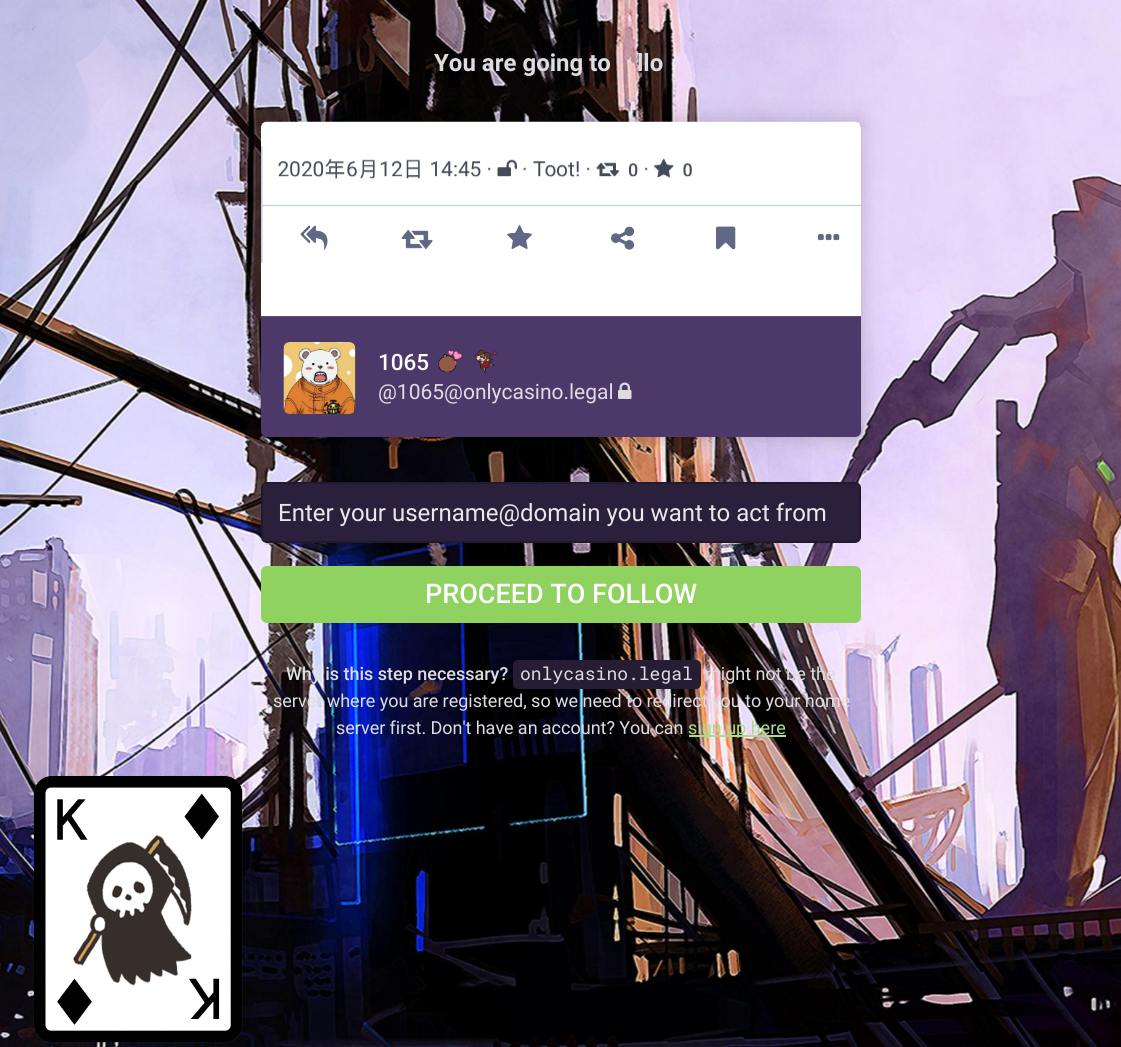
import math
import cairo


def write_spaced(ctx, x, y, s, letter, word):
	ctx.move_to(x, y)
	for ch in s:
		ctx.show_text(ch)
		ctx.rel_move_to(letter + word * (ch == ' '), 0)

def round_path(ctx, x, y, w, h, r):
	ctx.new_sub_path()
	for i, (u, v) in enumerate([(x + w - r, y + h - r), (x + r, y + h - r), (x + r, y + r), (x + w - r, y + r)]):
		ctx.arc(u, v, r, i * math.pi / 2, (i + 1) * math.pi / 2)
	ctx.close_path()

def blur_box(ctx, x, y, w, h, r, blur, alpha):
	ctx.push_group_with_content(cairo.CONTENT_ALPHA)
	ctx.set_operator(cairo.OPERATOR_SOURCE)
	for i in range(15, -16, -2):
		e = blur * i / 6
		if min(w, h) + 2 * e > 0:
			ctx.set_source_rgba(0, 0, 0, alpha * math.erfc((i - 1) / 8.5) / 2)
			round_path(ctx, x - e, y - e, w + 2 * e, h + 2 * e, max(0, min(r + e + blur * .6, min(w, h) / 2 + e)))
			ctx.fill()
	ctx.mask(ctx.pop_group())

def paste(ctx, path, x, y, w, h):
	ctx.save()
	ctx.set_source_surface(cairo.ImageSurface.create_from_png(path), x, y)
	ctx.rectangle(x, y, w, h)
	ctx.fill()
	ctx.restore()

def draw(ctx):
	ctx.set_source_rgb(1, 1, 1)
	ctx.paint()
	paste(ctx, 'media/1.png', 0, 0, 1121, 1047)
	ctx.select_font_face('Roboto', cairo.FONT_SLANT_NORMAL, cairo.FONT_WEIGHT_BOLD)
	ctx.set_font_size(24)
	ctx.set_source_rgb(0.867, 0.867, 0.882)
	ctx.move_to(434, 71)
	ctx.show_text('You are going to')
	ctx.move_to(637, 71)
	ctx.show_text('llo')
	ctx.set_source_rgb(0, 0, 0)
	blur_box(ctx, 261, 122, 600, 315, 0, 11, 0.2)
	ctx.set_source_rgb(0.149, 0.11, 0.204)
	ctx.new_path()
	ctx.move_to(267, 122)
	ctx.line_to(855, 122)
	ctx.curve_to(858.5, 122, 861, 124.5, 861, 128)
	ctx.line_to(861, 317)
	ctx.line_to(261, 317)
	ctx.line_to(261, 128)
	ctx.curve_to(261, 124.5, 263.5, 122, 267, 122)
	ctx.close_path()
	ctx.fill()
	paste(ctx, 'media/2.png', 261, 121, 600, 196)
	ctx.set_source_rgb(0.302, 0.224, 0.412)
	ctx.new_path()
	ctx.move_to(261, 317)
	ctx.line_to(861, 317)
	ctx.line_to(861, 431)
	ctx.curve_to(861, 434.5, 858.5, 437, 855, 437)
	ctx.line_to(267, 437)
	ctx.curve_to(263.5, 437, 261, 434.5, 261, 431)
	ctx.close_path()
	ctx.fill()
	ctx.set_source_rgb(0.188, 0.141, 0.259)
	round_path(ctx, 284, 342, 72, 72, 6)
	ctx.fill()
	paste(ctx, 'media/3.png', 283, 342, 73, 72)
	ctx.select_font_face('Roboto Medium')
	ctx.set_font_size(22.5)
	ctx.set_source_rgb(1, 1, 1)
	ctx.move_to(378, 370)
	ctx.show_text('1065')
	paste(ctx, 'media/4.png', 438, 350, 24, 23)
	paste(ctx, 'media/5.png', 474, 349, 24, 25)
	ctx.select_font_face('Roboto')
	ctx.set_font_size(21)
	ctx.set_source_rgb(0.867, 0.867, 0.882)
	ctx.move_to(378, 399)
	ctx.show_text('@1065@onlycasino.legal')
	paste(ctx, 'media/6.png', 618, 382, 14, 17)
	ctx.set_source_rgb(0.169, 0.125, 0.231)
	round_path(ctx, 262, 483, 598, 59, 5)
	ctx.fill_preserve()
	ctx.set_source_rgb(0.129, 0.098, 0.18)
	ctx.stroke()
	ctx.set_font_size(24)
	ctx.set_source_rgb(0.91, 0.91, 0.922)
	ctx.move_to(278, 521)
	ctx.show_text('Enter your username@domain you want to act from')
	ctx.set_source_rgb(0.561, 0.824, 0.376)
	round_path(ctx, 261, 566, 600, 57, 6)
	ctx.fill()
	ctx.select_font_face('Roboto Medium')
	ctx.set_font_size(27)
	ctx.set_source_rgb(1, 1, 1)
	ctx.move_to(425, 603)
	ctx.show_text('PROCEED TO FOLLOW')
	ctx.set_font_size(18)
	ctx.set_source_rgb(0.867, 0.867, 0.882)
	ctx.move_to(286, 680)
	ctx.show_text('Why is this step necessary?')
	ctx.set_source_rgb(0.149, 0.11, 0.204)
	round_path(ctx, 513, 660, 188, 29, 5)
	ctx.fill()
	ctx.select_font_face('Roboto Mono')
	ctx.set_source_rgb(0.867, 0.867, 0.882)
	ctx.move_to(520, 680)
	ctx.show_text('onlycasino.legal')
	ctx.select_font_face('Roboto')
	ctx.move_to(705, 680)
	ctx.show_text('might not be the')
	write_spaced(ctx, 273, 707, 'server where you are registered, so we need to redirect you to your home', 0, -0.1)
	write_spaced(ctx, 336, 734, 'server first. Don\'t have an account? You can', 0, -0.25)
	ctx.set_source_rgb(0.671, 0.867, 0.533)
	ctx.rectangle(689, 735, 97, 2)
	ctx.fill()
	ctx.move_to(688, 734)
	ctx.show_text('sign up here')
	paste(ctx, 'media/7.png', 33, 775, 210, 268)


surface = cairo.ImageSurface(cairo.FORMAT_RGB24, 1121, 1047)
ctx = cairo.Context(surface)
options = cairo.FontOptions()
options.set_hint_metrics(cairo.HINT_METRICS_OFF)
options.set_hint_style(cairo.HINT_STYLE_NONE)
ctx.set_font_options(options)
ctx.set_miter_limit(4)
draw(ctx)
surface.write_to_png('image.png')
